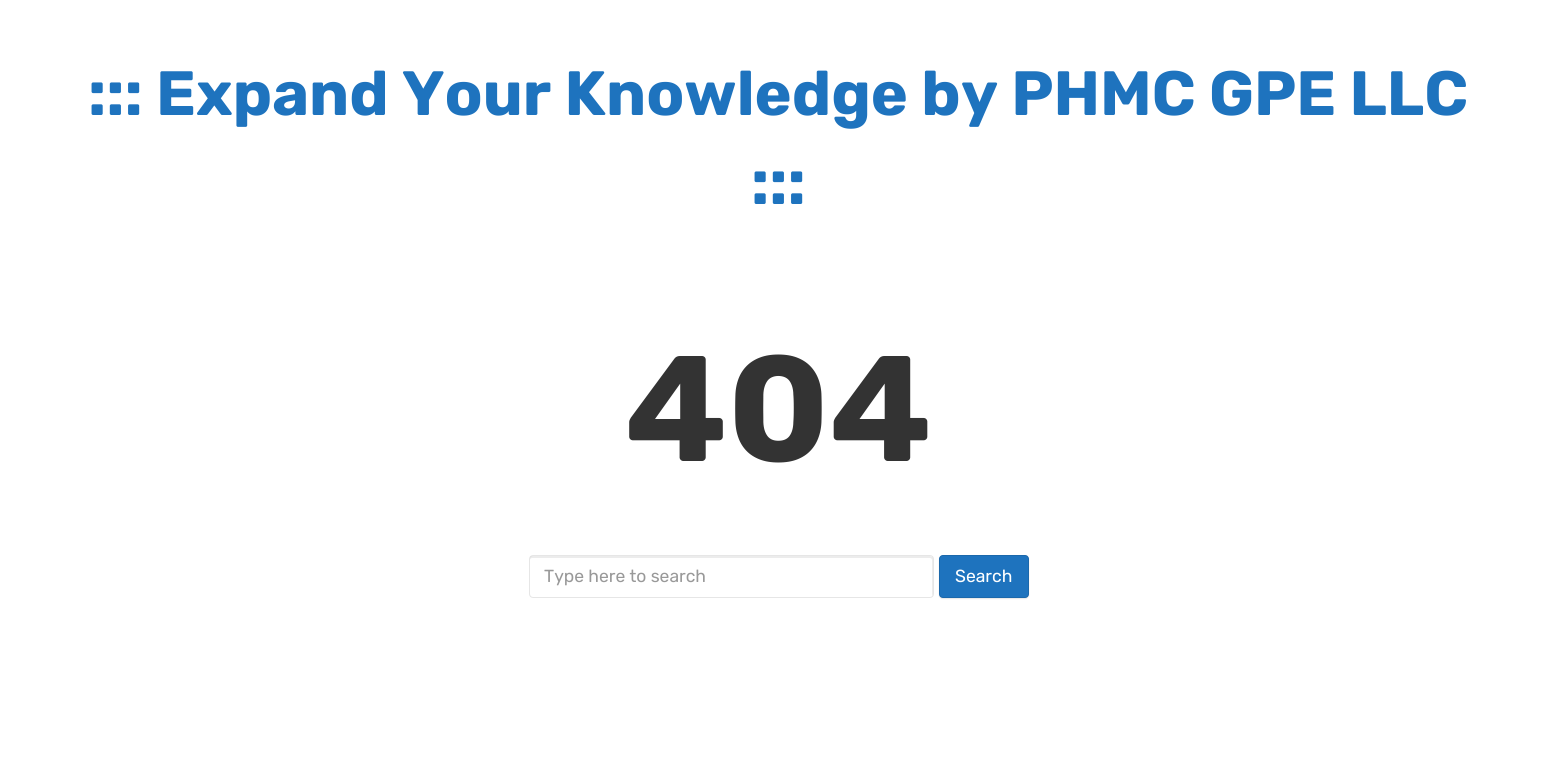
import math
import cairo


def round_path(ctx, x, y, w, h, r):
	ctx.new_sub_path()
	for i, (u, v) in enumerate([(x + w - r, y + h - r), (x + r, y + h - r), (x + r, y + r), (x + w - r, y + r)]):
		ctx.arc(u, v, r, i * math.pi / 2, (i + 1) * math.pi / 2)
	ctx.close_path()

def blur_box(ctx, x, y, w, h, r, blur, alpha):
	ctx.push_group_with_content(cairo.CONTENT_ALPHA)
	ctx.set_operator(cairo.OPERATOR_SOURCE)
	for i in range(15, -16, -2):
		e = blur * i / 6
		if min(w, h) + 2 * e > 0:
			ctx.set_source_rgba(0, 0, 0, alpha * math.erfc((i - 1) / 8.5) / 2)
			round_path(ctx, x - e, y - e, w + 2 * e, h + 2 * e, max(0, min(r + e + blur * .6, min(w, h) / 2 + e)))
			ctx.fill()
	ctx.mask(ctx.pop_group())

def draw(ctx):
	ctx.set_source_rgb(1, 1, 1)
	ctx.paint()
	ctx.select_font_face('Rubik', cairo.FONT_SLANT_NORMAL, cairo.FONT_WEIGHT_BOLD)
	ctx.set_font_size(62.5)
	ctx.set_source_rgb(0.118, 0.451, 0.745)
	ctx.move_to(88, 115)
	ctx.show_text('::: Expand Your Knowledge by PHMC GPE LLC')
	ctx.move_to(751, 204)
	ctx.show_text(':::')
	ctx.set_font_size(150)
	ctx.set_source_rgb(0.2, 0.2, 0.2)
	ctx.move_to(625, 461)
	ctx.show_text('404')
	ctx.set_source_rgb(0.925, 0.925, 0.925)
	ctx.new_path()
	ctx.move_to(532, 558)
	ctx.line_to(930, 558)
	ctx.curve_to(931, 558, 932, 559, 932, 560)
	ctx.line_to(932, 596)
	ctx.line_to(933, 594)
	ctx.line_to(933, 558)
	ctx.line_to(932, 557)
	ctx.line_to(930, 556)
	ctx.line_to(532, 556)
	ctx.curve_to(530, 556, 530, 558, 530, 560)
	ctx.curve_to(530, 559, 531, 558, 532, 558)
	ctx.close_path()
	ctx.fill()
	round_path(ctx, 529.5, 555.5, 404, 42, 3.5)
	ctx.set_source_rgba(0, 0, 0, 0.1)
	ctx.set_line_width(1)
	ctx.stroke()
	ctx.select_font_face('Rubik')
	ctx.set_font_size(17.5)
	ctx.set_source_rgb(0.6, 0.6, 0.6)
	ctx.move_to(544, 582)
	ctx.show_text('Type here to search')
	ctx.set_source_rgb(0, 0, 0)
	blur_box(ctx, 939, 556, 90, 43, 4, 0.5, 0.1)
	ctx.set_source_rgb(0.118, 0.451, 0.745)
	round_path(ctx, 939, 555, 90, 43, 4)
	ctx.fill()
	round_path(ctx, 939.5, 555.5, 89, 42, 3.5)
	ctx.set_source_rgba(0, 0, 0, 0.1)
	ctx.stroke()
	ctx.set_source_rgb(1, 1, 1)
	ctx.move_to(955, 582)
	ctx.show_text('Search')


surface = cairo.ImageSurface(cairo.FORMAT_RGB24, 1556, 767)
ctx = cairo.Context(surface)
options = cairo.FontOptions()
options.set_hint_metrics(cairo.HINT_METRICS_OFF)
options.set_hint_style(cairo.HINT_STYLE_NONE)
ctx.set_font_options(options)
ctx.set_miter_limit(4)
draw(ctx)
surface.write_to_png('image.png')
